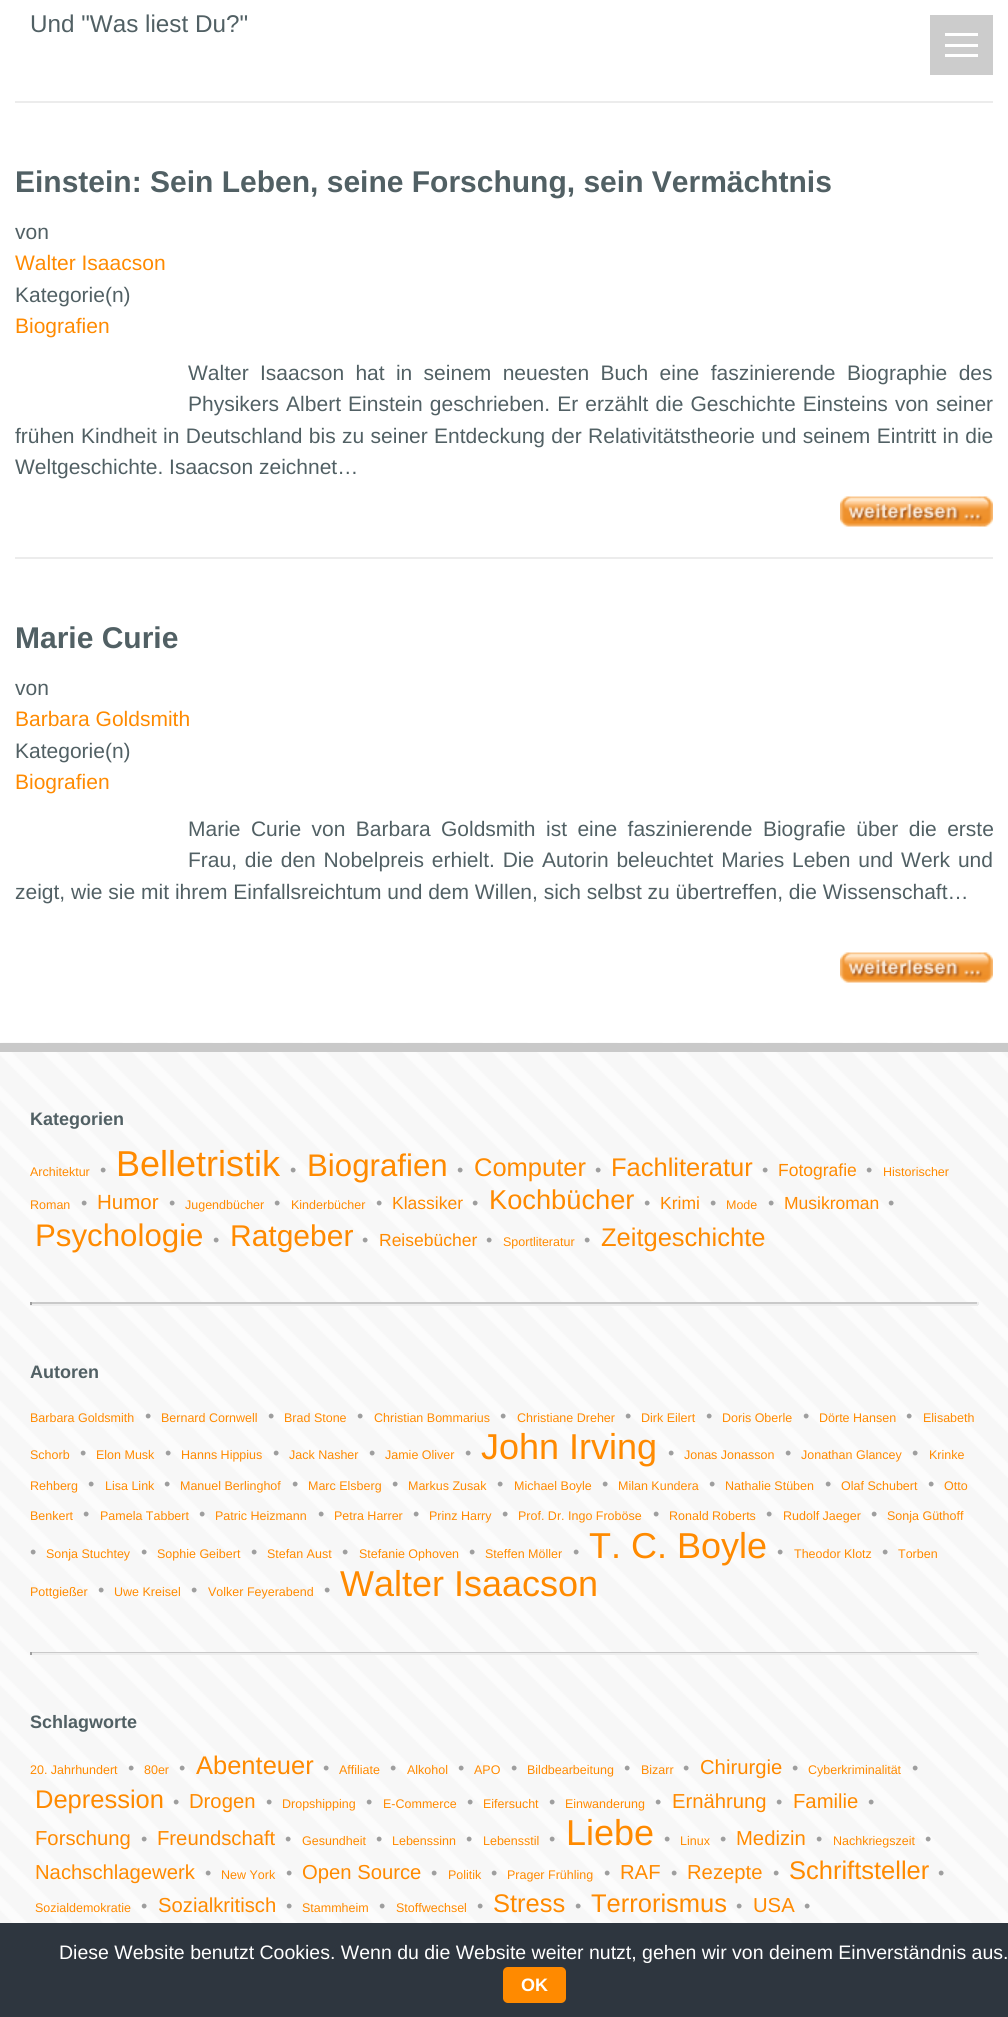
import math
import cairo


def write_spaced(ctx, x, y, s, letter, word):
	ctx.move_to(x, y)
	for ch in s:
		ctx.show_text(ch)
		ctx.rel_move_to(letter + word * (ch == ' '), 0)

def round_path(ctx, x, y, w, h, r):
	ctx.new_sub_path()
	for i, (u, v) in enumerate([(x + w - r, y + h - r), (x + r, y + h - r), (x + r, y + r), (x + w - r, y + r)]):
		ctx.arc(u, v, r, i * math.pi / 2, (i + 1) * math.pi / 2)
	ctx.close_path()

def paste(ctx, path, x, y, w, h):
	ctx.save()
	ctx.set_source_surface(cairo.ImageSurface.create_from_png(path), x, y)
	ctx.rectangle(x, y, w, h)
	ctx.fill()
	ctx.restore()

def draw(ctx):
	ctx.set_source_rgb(1, 1, 1)
	ctx.paint()
	ctx.select_font_face('Liberation Sans')
	ctx.set_font_size(24.25)
	ctx.set_source_rgb(0.318, 0.376, 0.392)
	ctx.move_to(30, 32)
	ctx.show_text('Und "Was liest Du?"')
	ctx.set_source_rgb(0.8, 0.8, 0.8)
	ctx.rectangle(930, 15, 63, 60)
	ctx.fill()
	ctx.set_source_rgb(1, 1, 1)
	ctx.rectangle(945, 33, 33, 3)
	ctx.rectangle(945, 44, 33, 3)
	ctx.rectangle(945, 54, 33, 3)
	ctx.fill()
	ctx.set_source_rgb(0.922, 0.922, 0.922)
	ctx.rectangle(15, 101, 978, 2)
	ctx.fill()
	ctx.select_font_face('Liberation Sans', cairo.FONT_SLANT_NORMAL, cairo.FONT_WEIGHT_BOLD)
	ctx.set_font_size(30)
	ctx.set_source_rgb(0.318, 0.376, 0.392)
	ctx.move_to(15, 192)
	ctx.show_text('Einstein: Sein Leben, seine Forschung, sein Vermächtnis')
	ctx.select_font_face('Liberation Sans')
	ctx.set_font_size(21)
	ctx.move_to(15, 239)
	ctx.show_text('von')
	ctx.set_source_rgb(1, 0.541, 0)
	ctx.move_to(15, 270)
	ctx.show_text('Walter Isaacson')
	ctx.set_source_rgb(0.318, 0.376, 0.392)
	ctx.move_to(15, 302)
	ctx.show_text('Kategorie(n)')
	ctx.set_source_rgb(1, 0.541, 0)
	ctx.move_to(15, 333)
	ctx.show_text('Biografien')
	ctx.set_source_rgb(0.318, 0.376, 0.392)
	write_spaced(ctx, 188, 380, 'Walter Isaacson hat in seinem neuesten Buch eine faszinierende Biographie des', 0, 5.5)
	write_spaced(ctx, 188, 411, 'Physikers Albert Einstein geschrieben. Er erzählt die Geschichte Einsteins von seiner', 0, 1.25)
	write_spaced(ctx, 15, 443, 'frühen Kindheit in Deutschland bis zu seiner Entdeckung der Relativitätstheorie und seinem Eintritt in die', 0, 0.5)
	ctx.move_to(15, 474)
	ctx.show_text('Weltgeschichte. Isaacson zeichnet…')
	paste(ctx, 'media/1.png', 840, 496, 153, 31)
	ctx.set_source_rgb(0.922, 0.922, 0.922)
	ctx.rectangle(15, 557, 978, 2)
	ctx.fill()
	ctx.select_font_face('Liberation Sans', cairo.FONT_SLANT_NORMAL, cairo.FONT_WEIGHT_BOLD)
	ctx.set_font_size(30)
	ctx.set_source_rgb(0.318, 0.376, 0.392)
	ctx.move_to(15, 648)
	ctx.show_text('Marie Curie')
	ctx.select_font_face('Liberation Sans')
	ctx.set_font_size(21)
	ctx.move_to(15, 695)
	ctx.show_text('von')
	ctx.set_source_rgb(1, 0.541, 0)
	ctx.move_to(15, 726)
	ctx.show_text('Barbara Goldsmith')
	ctx.set_source_rgb(0.318, 0.376, 0.392)
	ctx.move_to(15, 758)
	ctx.show_text('Kategorie(n)')
	ctx.set_source_rgb(1, 0.541, 0)
	ctx.move_to(15, 789)
	ctx.show_text('Biografien')
	ctx.set_source_rgb(0.318, 0.376, 0.392)
	write_spaced(ctx, 188, 836, 'Marie Curie von Barbara Goldsmith ist eine faszinierende Biografie über die erste', 0, 4.6)
	write_spaced(ctx, 188, 867, 'Frau, die den Nobelpreis erhielt. Die Autorin beleuchtet Maries Leben und Werk und', 0, 2)
	ctx.move_to(15, 899)
	ctx.show_text('zeigt, wie sie mit ihrem Einfallsreichtum und dem Willen, sich selbst zu übertreffen, die Wissenschaft…')
	paste(ctx, 'media/1.png', 840, 952, 153, 31)
	paste(ctx, 'media/2.png', 0, 1042, 1008, 881)
	ctx.set_source_rgb(0.788, 0.788, 0.788)
	ctx.rectangle(0, 1043, 1008, 9)
	ctx.fill()
	ctx.select_font_face('Liberation Sans', cairo.FONT_SLANT_NORMAL, cairo.FONT_WEIGHT_BOLD)
	ctx.set_font_size(18)
	ctx.set_source_rgb(0.318, 0.376, 0.392)
	ctx.move_to(30, 1125)
	ctx.show_text('Kategorien')
	ctx.select_font_face('Liberation Sans')
	ctx.set_font_size(12.5)
	ctx.set_source_rgb(1, 0.541, 0)
	ctx.move_to(30, 1176)
	ctx.show_text('Architektur')
	ctx.set_font_size(18)
	ctx.set_source_rgb(0.62, 0.62, 0.62)
	ctx.move_to(100, 1176)
	ctx.show_text('•')
	ctx.set_font_size(36)
	ctx.set_source_rgb(1, 0.541, 0)
	ctx.move_to(116, 1176)
	ctx.show_text('Belletristik')
	ctx.set_font_size(18)
	ctx.set_source_rgb(0.62, 0.62, 0.62)
	ctx.move_to(290, 1176)
	ctx.show_text('•')
	ctx.set_font_size(31.25)
	ctx.set_source_rgb(1, 0.541, 0)
	ctx.move_to(307, 1176)
	ctx.show_text('Biografien')
	ctx.set_font_size(18)
	ctx.set_source_rgb(0.62, 0.62, 0.62)
	ctx.move_to(457, 1176)
	ctx.show_text('•')
	ctx.set_font_size(25.5)
	ctx.set_source_rgb(1, 0.541, 0)
	ctx.move_to(474, 1176)
	ctx.show_text('Computer')
	ctx.set_font_size(18)
	ctx.set_source_rgb(0.62, 0.62, 0.62)
	ctx.move_to(595, 1176)
	ctx.show_text('•')
	ctx.set_font_size(25.5)
	ctx.set_source_rgb(1, 0.541, 0)
	ctx.move_to(611, 1176)
	ctx.show_text('Fachliteratur')
	ctx.set_font_size(18)
	ctx.set_source_rgb(0.62, 0.62, 0.62)
	ctx.move_to(762, 1176)
	ctx.show_text('•')
	ctx.set_font_size(17.5)
	ctx.set_source_rgb(1, 0.541, 0)
	ctx.move_to(778, 1176)
	ctx.show_text('Fotografie')
	ctx.set_font_size(18)
	ctx.set_source_rgb(0.62, 0.62, 0.62)
	ctx.move_to(866, 1176)
	ctx.show_text('•')
	ctx.set_font_size(12.5)
	ctx.set_source_rgb(1, 0.541, 0)
	ctx.move_to(883, 1176)
	ctx.show_text('Historischer')
	ctx.move_to(30, 1209)
	ctx.show_text('Roman')
	ctx.set_font_size(18)
	ctx.set_source_rgb(0.62, 0.62, 0.62)
	ctx.move_to(81, 1209)
	ctx.show_text('•')
	ctx.set_font_size(20.5)
	ctx.set_source_rgb(1, 0.541, 0)
	ctx.move_to(97, 1209)
	ctx.show_text('Humor')
	ctx.set_font_size(18)
	ctx.set_source_rgb(0.62, 0.62, 0.62)
	ctx.move_to(169, 1209)
	ctx.show_text('•')
	ctx.set_font_size(12.5)
	ctx.set_source_rgb(1, 0.541, 0)
	ctx.move_to(185, 1209)
	ctx.show_text('Jugendbücher')
	ctx.set_font_size(18)
	ctx.set_source_rgb(0.62, 0.62, 0.62)
	ctx.move_to(274, 1209)
	ctx.show_text('•')
	ctx.set_font_size(12.5)
	ctx.set_source_rgb(1, 0.541, 0)
	ctx.move_to(291, 1209)
	ctx.show_text('Kinderbücher')
	ctx.set_font_size(18)
	ctx.set_source_rgb(0.62, 0.62, 0.62)
	ctx.move_to(376, 1209)
	ctx.show_text('•')
	ctx.set_font_size(17.5)
	ctx.set_source_rgb(1, 0.541, 0)
	ctx.move_to(392, 1209)
	ctx.show_text('Klassiker')
	ctx.set_font_size(18)
	ctx.set_source_rgb(0.62, 0.62, 0.62)
	ctx.move_to(472, 1209)
	ctx.show_text('•')
	ctx.set_font_size(27.25)
	ctx.set_source_rgb(1, 0.541, 0)
	ctx.move_to(489, 1209)
	ctx.show_text('Kochbücher')
	ctx.set_font_size(18)
	ctx.set_source_rgb(0.62, 0.62, 0.62)
	ctx.move_to(644, 1209)
	ctx.show_text('•')
	ctx.set_font_size(17.5)
	ctx.set_source_rgb(1, 0.541, 0)
	ctx.move_to(660, 1209)
	ctx.show_text('Krimi')
	ctx.set_font_size(18)
	ctx.set_source_rgb(0.62, 0.62, 0.62)
	ctx.move_to(710, 1209)
	ctx.show_text('•')
	ctx.set_font_size(12.5)
	ctx.set_source_rgb(1, 0.541, 0)
	ctx.move_to(726, 1209)
	ctx.show_text('Mode')
	ctx.set_font_size(18)
	ctx.set_source_rgb(0.62, 0.62, 0.62)
	ctx.move_to(768, 1209)
	ctx.show_text('•')
	ctx.set_font_size(17.5)
	ctx.set_source_rgb(1, 0.541, 0)
	ctx.move_to(784, 1209)
	ctx.show_text('Musikroman')
	ctx.set_font_size(18)
	ctx.set_source_rgb(0.62, 0.62, 0.62)
	ctx.move_to(888, 1209)
	ctx.show_text('•')
	ctx.set_font_size(31.25)
	ctx.set_source_rgb(1, 0.541, 0)
	ctx.move_to(35, 1246)
	ctx.show_text('Psychologie')
	ctx.set_font_size(18)
	ctx.set_source_rgb(0.62, 0.62, 0.62)
	ctx.move_to(213, 1246)
	ctx.show_text('•')
	ctx.set_font_size(30)
	ctx.set_source_rgb(1, 0.541, 0)
	ctx.move_to(230, 1246)
	ctx.show_text('Ratgeber')
	ctx.set_font_size(18)
	ctx.set_source_rgb(0.62, 0.62, 0.62)
	ctx.move_to(362, 1246)
	ctx.show_text('•')
	ctx.set_font_size(17.5)
	ctx.set_source_rgb(1, 0.541, 0)
	ctx.move_to(379, 1246)
	ctx.show_text('Reisebücher')
	ctx.set_font_size(18)
	ctx.set_source_rgb(0.62, 0.62, 0.62)
	ctx.move_to(486, 1246)
	ctx.show_text('•')
	ctx.set_font_size(12.5)
	ctx.set_source_rgb(1, 0.541, 0)
	ctx.move_to(503, 1246)
	ctx.show_text('Sportliteratur')
	ctx.set_font_size(18)
	ctx.set_source_rgb(0.62, 0.62, 0.62)
	ctx.move_to(584, 1246)
	ctx.show_text('•')
	ctx.set_font_size(25.5)
	ctx.set_source_rgb(1, 0.541, 0)
	ctx.move_to(601, 1246)
	ctx.show_text('Zeitgeschichte')
	ctx.set_source_rgb(0.788, 0.788, 0.788)
	ctx.rectangle(30, 1302, 948, 2)
	ctx.fill()
	ctx.set_source_rgb(0.933, 0.933, 0.933)
	ctx.rectangle(977, 1302, 2, 3)
	ctx.rectangle(30, 1304, 948, 2)
	ctx.fill()
	ctx.set_source_rgb(0.624, 0.624, 0.624)
	ctx.rectangle(30, 1302, 2, 3)
	ctx.fill()
	ctx.select_font_face('Liberation Sans', cairo.FONT_SLANT_NORMAL, cairo.FONT_WEIGHT_BOLD)
	ctx.set_font_size(18)
	ctx.set_source_rgb(0.318, 0.376, 0.392)
	ctx.move_to(30, 1378)
	ctx.show_text('Autoren')
	ctx.select_font_face('Liberation Sans')
	ctx.set_font_size(12.5)
	ctx.set_source_rgb(1, 0.541, 0)
	ctx.move_to(30, 1422)
	ctx.show_text('Barbara Goldsmith')
	ctx.set_font_size(18)
	ctx.set_source_rgb(0.62, 0.62, 0.62)
	ctx.move_to(145, 1422)
	ctx.show_text('•')
	ctx.set_font_size(12.5)
	ctx.set_source_rgb(1, 0.541, 0)
	ctx.move_to(161, 1422)
	ctx.show_text('Bernard Cornwell')
	ctx.set_font_size(18)
	ctx.set_source_rgb(0.62, 0.62, 0.62)
	ctx.move_to(268, 1422)
	ctx.show_text('•')
	ctx.set_font_size(12.5)
	ctx.set_source_rgb(1, 0.541, 0)
	ctx.move_to(284, 1422)
	ctx.show_text('Brad Stone')
	ctx.set_font_size(18)
	ctx.set_source_rgb(0.62, 0.62, 0.62)
	ctx.move_to(357, 1422)
	ctx.show_text('•')
	ctx.set_font_size(12.5)
	ctx.set_source_rgb(1, 0.541, 0)
	ctx.move_to(374, 1422)
	ctx.show_text('Christian Bommarius')
	ctx.set_font_size(18)
	ctx.set_source_rgb(0.62, 0.62, 0.62)
	ctx.move_to(500, 1422)
	ctx.show_text('•')
	ctx.set_font_size(12.5)
	ctx.set_source_rgb(1, 0.541, 0)
	ctx.move_to(517, 1422)
	ctx.show_text('Christiane Dreher')
	ctx.set_font_size(18)
	ctx.set_source_rgb(0.62, 0.62, 0.62)
	ctx.move_to(625, 1422)
	ctx.show_text('•')
	ctx.set_font_size(12.5)
	ctx.set_source_rgb(1, 0.541, 0)
	ctx.move_to(641, 1422)
	ctx.show_text('Dirk Eilert')
	ctx.set_font_size(18)
	ctx.set_source_rgb(0.62, 0.62, 0.62)
	ctx.move_to(706, 1422)
	ctx.show_text('•')
	ctx.set_font_size(12.5)
	ctx.set_source_rgb(1, 0.541, 0)
	ctx.move_to(722, 1422)
	ctx.show_text('Doris Oberle')
	ctx.set_font_size(18)
	ctx.set_source_rgb(0.62, 0.62, 0.62)
	ctx.move_to(803, 1422)
	ctx.show_text('•')
	ctx.set_font_size(12.5)
	ctx.set_source_rgb(1, 0.541, 0)
	ctx.move_to(819, 1422)
	ctx.show_text('Dörte Hansen')
	ctx.set_font_size(18)
	ctx.set_source_rgb(0.62, 0.62, 0.62)
	ctx.move_to(906, 1422)
	ctx.show_text('•')
	ctx.set_font_size(12.5)
	ctx.set_source_rgb(1, 0.541, 0)
	ctx.move_to(923, 1422)
	ctx.show_text('Elisabeth')
	ctx.move_to(30, 1459)
	ctx.show_text('Schorb')
	ctx.set_font_size(18)
	ctx.set_source_rgb(0.62, 0.62, 0.62)
	ctx.move_to(80, 1459)
	ctx.show_text('•')
	ctx.set_font_size(12.5)
	ctx.set_source_rgb(1, 0.541, 0)
	ctx.move_to(96, 1459)
	ctx.show_text('Elon Musk')
	ctx.set_font_size(18)
	ctx.set_source_rgb(0.62, 0.62, 0.62)
	ctx.move_to(165, 1459)
	ctx.show_text('•')
	ctx.set_font_size(12.5)
	ctx.set_source_rgb(1, 0.541, 0)
	ctx.move_to(181, 1459)
	ctx.show_text('Hanns Hippius')
	ctx.set_font_size(18)
	ctx.set_source_rgb(0.62, 0.62, 0.62)
	ctx.move_to(273, 1459)
	ctx.show_text('•')
	ctx.set_font_size(12.5)
	ctx.set_source_rgb(1, 0.541, 0)
	ctx.move_to(289, 1459)
	ctx.show_text('Jack Nasher')
	ctx.set_font_size(18)
	ctx.set_source_rgb(0.62, 0.62, 0.62)
	ctx.move_to(369, 1459)
	ctx.show_text('•')
	ctx.set_font_size(12.5)
	ctx.set_source_rgb(1, 0.541, 0)
	ctx.move_to(385, 1459)
	ctx.show_text('Jamie Oliver')
	ctx.set_font_size(18)
	ctx.set_source_rgb(0.62, 0.62, 0.62)
	ctx.move_to(465, 1459)
	ctx.show_text('•')
	ctx.set_font_size(36)
	ctx.set_source_rgb(1, 0.541, 0)
	ctx.move_to(481, 1459)
	ctx.show_text('John Irving')
	ctx.set_font_size(18)
	ctx.set_source_rgb(0.62, 0.62, 0.62)
	ctx.move_to(668, 1459)
	ctx.show_text('•')
	ctx.set_font_size(12.5)
	ctx.set_source_rgb(1, 0.541, 0)
	ctx.move_to(684, 1459)
	ctx.show_text('Jonas Jonasson')
	ctx.set_font_size(18)
	ctx.set_source_rgb(0.62, 0.62, 0.62)
	ctx.move_to(785, 1459)
	ctx.show_text('•')
	ctx.set_font_size(12.5)
	ctx.set_source_rgb(1, 0.541, 0)
	ctx.move_to(801, 1459)
	ctx.show_text('Jonathan Glancey')
	ctx.set_font_size(18)
	ctx.set_source_rgb(0.62, 0.62, 0.62)
	ctx.move_to(912, 1459)
	ctx.show_text('•')
	ctx.set_font_size(12.5)
	ctx.set_source_rgb(1, 0.541, 0)
	ctx.move_to(929, 1459)
	ctx.show_text('Krinke')
	ctx.move_to(30, 1490)
	ctx.show_text('Rehberg')
	ctx.set_font_size(18)
	ctx.set_source_rgb(0.62, 0.62, 0.62)
	ctx.move_to(88, 1490)
	ctx.show_text('•')
	ctx.set_font_size(12.5)
	ctx.set_source_rgb(1, 0.541, 0)
	ctx.move_to(105, 1490)
	ctx.show_text('Lisa Link')
	ctx.set_font_size(18)
	ctx.set_source_rgb(0.62, 0.62, 0.62)
	ctx.move_to(164, 1490)
	ctx.show_text('•')
	ctx.set_font_size(12.5)
	ctx.set_source_rgb(1, 0.541, 0)
	ctx.move_to(180, 1490)
	ctx.show_text('Manuel Berlinghof')
	ctx.set_font_size(18)
	ctx.set_source_rgb(0.62, 0.62, 0.62)
	ctx.move_to(292, 1490)
	ctx.show_text('•')
	ctx.set_font_size(12.5)
	ctx.set_source_rgb(1, 0.541, 0)
	ctx.move_to(308, 1490)
	ctx.show_text('Marc Elsberg')
	ctx.set_font_size(18)
	ctx.set_source_rgb(0.62, 0.62, 0.62)
	ctx.move_to(392, 1490)
	ctx.show_text('•')
	ctx.set_font_size(12.5)
	ctx.set_source_rgb(1, 0.541, 0)
	ctx.move_to(408, 1490)
	ctx.show_text('Markus Zusak')
	ctx.set_font_size(18)
	ctx.set_source_rgb(0.62, 0.62, 0.62)
	ctx.move_to(497, 1490)
	ctx.show_text('•')
	ctx.set_font_size(12.5)
	ctx.set_source_rgb(1, 0.541, 0)
	ctx.move_to(514, 1490)
	ctx.show_text('Michael Boyle')
	ctx.set_font_size(18)
	ctx.set_source_rgb(0.62, 0.62, 0.62)
	ctx.move_to(602, 1490)
	ctx.show_text('•')
	ctx.set_font_size(12.5)
	ctx.set_source_rgb(1, 0.541, 0)
	ctx.move_to(618, 1490)
	ctx.show_text('Milan Kundera')
	ctx.set_font_size(18)
	ctx.set_source_rgb(0.62, 0.62, 0.62)
	ctx.move_to(709, 1490)
	ctx.show_text('•')
	ctx.set_font_size(12.5)
	ctx.set_source_rgb(1, 0.541, 0)
	ctx.move_to(725, 1490)
	ctx.show_text('Nathalie Stüben')
	ctx.set_font_size(18)
	ctx.set_source_rgb(0.62, 0.62, 0.62)
	ctx.move_to(825, 1490)
	ctx.show_text('•')
	ctx.set_font_size(12.5)
	ctx.set_source_rgb(1, 0.541, 0)
	ctx.move_to(841, 1490)
	ctx.show_text('Olaf Schubert')
	ctx.set_font_size(18)
	ctx.set_source_rgb(0.62, 0.62, 0.62)
	ctx.move_to(928, 1490)
	ctx.show_text('•')
	ctx.set_font_size(12.5)
	ctx.set_source_rgb(1, 0.541, 0)
	ctx.move_to(944, 1490)
	ctx.show_text('Otto')
	ctx.move_to(30, 1520)
	ctx.show_text('Benkert')
	ctx.set_font_size(18)
	ctx.set_source_rgb(0.62, 0.62, 0.62)
	ctx.move_to(83, 1520)
	ctx.show_text('•')
	ctx.set_font_size(12.5)
	ctx.set_source_rgb(1, 0.541, 0)
	ctx.move_to(100, 1520)
	ctx.show_text('Pamela Tabbert')
	ctx.set_font_size(18)
	ctx.set_source_rgb(0.62, 0.62, 0.62)
	ctx.move_to(199, 1520)
	ctx.show_text('•')
	ctx.set_font_size(12.5)
	ctx.set_source_rgb(1, 0.541, 0)
	ctx.move_to(215, 1520)
	ctx.show_text('Patric Heizmann')
	ctx.set_font_size(18)
	ctx.set_source_rgb(0.62, 0.62, 0.62)
	ctx.move_to(318, 1520)
	ctx.show_text('•')
	ctx.set_font_size(12.5)
	ctx.set_source_rgb(1, 0.541, 0)
	ctx.move_to(334, 1520)
	ctx.show_text('Petra Harrer')
	ctx.set_font_size(18)
	ctx.set_source_rgb(0.62, 0.62, 0.62)
	ctx.move_to(413, 1520)
	ctx.show_text('•')
	ctx.set_font_size(12.5)
	ctx.set_source_rgb(1, 0.541, 0)
	ctx.move_to(429, 1520)
	ctx.show_text('Prinz Harry')
	ctx.set_font_size(18)
	ctx.set_source_rgb(0.62, 0.62, 0.62)
	ctx.move_to(502, 1520)
	ctx.show_text('•')
	ctx.set_font_size(12.5)
	ctx.set_source_rgb(1, 0.541, 0)
	ctx.move_to(518, 1520)
	ctx.show_text('Prof. Dr. Ingo Froböse')
	ctx.set_font_size(18)
	ctx.set_source_rgb(0.62, 0.62, 0.62)
	ctx.move_to(653, 1520)
	ctx.show_text('•')
	ctx.set_font_size(12.5)
	ctx.set_source_rgb(1, 0.541, 0)
	ctx.move_to(669, 1520)
	ctx.show_text('Ronald Roberts')
	ctx.set_font_size(18)
	ctx.set_source_rgb(0.62, 0.62, 0.62)
	ctx.move_to(766, 1520)
	ctx.show_text('•')
	ctx.set_font_size(12.5)
	ctx.set_source_rgb(1, 0.541, 0)
	ctx.move_to(783, 1520)
	ctx.show_text('Rudolf Jaeger')
	ctx.set_font_size(18)
	ctx.set_source_rgb(0.62, 0.62, 0.62)
	ctx.move_to(871, 1520)
	ctx.show_text('•')
	ctx.set_font_size(12.5)
	ctx.set_source_rgb(1, 0.541, 0)
	ctx.move_to(887, 1520)
	ctx.show_text('Sonja Güthoff')
	ctx.set_font_size(18)
	ctx.set_source_rgb(0.62, 0.62, 0.62)
	ctx.move_to(30, 1558)
	ctx.show_text('•')
	ctx.set_font_size(12.5)
	ctx.set_source_rgb(1, 0.541, 0)
	ctx.move_to(46, 1558)
	ctx.show_text('Sonja Stuchtey')
	ctx.set_font_size(18)
	ctx.set_source_rgb(0.62, 0.62, 0.62)
	ctx.move_to(141, 1558)
	ctx.show_text('•')
	ctx.set_font_size(12.5)
	ctx.set_source_rgb(1, 0.541, 0)
	ctx.move_to(157, 1558)
	ctx.show_text('Sophie Geibert')
	ctx.set_font_size(18)
	ctx.set_source_rgb(0.62, 0.62, 0.62)
	ctx.move_to(251, 1558)
	ctx.show_text('•')
	ctx.set_font_size(12.5)
	ctx.set_source_rgb(1, 0.541, 0)
	ctx.move_to(267, 1558)
	ctx.show_text('Stefan Aust')
	ctx.set_font_size(18)
	ctx.set_source_rgb(0.62, 0.62, 0.62)
	ctx.move_to(342, 1558)
	ctx.show_text('•')
	ctx.set_font_size(12.5)
	ctx.set_source_rgb(1, 0.541, 0)
	ctx.move_to(359, 1558)
	ctx.show_text('Stefanie Ophoven')
	ctx.set_font_size(18)
	ctx.set_source_rgb(0.62, 0.62, 0.62)
	ctx.move_to(469, 1558)
	ctx.show_text('•')
	ctx.set_font_size(12.5)
	ctx.set_source_rgb(1, 0.541, 0)
	ctx.move_to(485, 1558)
	ctx.show_text('Steffen Möller')
	ctx.set_font_size(18)
	ctx.set_source_rgb(0.62, 0.62, 0.62)
	ctx.move_to(573, 1558)
	ctx.show_text('•')
	ctx.set_font_size(36)
	ctx.set_source_rgb(1, 0.541, 0)
	ctx.move_to(589, 1558)
	ctx.show_text('T. C. Boyle')
	ctx.set_font_size(18)
	ctx.set_source_rgb(0.62, 0.62, 0.62)
	ctx.move_to(777, 1558)
	ctx.show_text('•')
	ctx.set_font_size(12.5)
	ctx.set_source_rgb(1, 0.541, 0)
	ctx.move_to(794, 1558)
	ctx.show_text('Theodor Klotz')
	ctx.set_font_size(18)
	ctx.set_source_rgb(0.62, 0.62, 0.62)
	ctx.move_to(882, 1558)
	ctx.show_text('•')
	ctx.set_font_size(12.5)
	ctx.set_source_rgb(1, 0.541, 0)
	ctx.move_to(898, 1558)
	ctx.show_text('Torben')
	ctx.move_to(30, 1596)
	ctx.show_text('Pottgießer')
	ctx.set_font_size(18)
	ctx.set_source_rgb(0.62, 0.62, 0.62)
	ctx.move_to(98, 1596)
	ctx.show_text('•')
	ctx.set_font_size(12.5)
	ctx.set_source_rgb(1, 0.541, 0)
	ctx.move_to(114, 1596)
	ctx.show_text('Uwe Kreisel')
	ctx.set_font_size(18)
	ctx.set_source_rgb(0.62, 0.62, 0.62)
	ctx.move_to(191, 1596)
	ctx.show_text('•')
	ctx.set_font_size(12.5)
	ctx.set_source_rgb(1, 0.541, 0)
	ctx.move_to(208, 1596)
	ctx.show_text('Volker Feyerabend')
	ctx.set_font_size(18)
	ctx.set_source_rgb(0.62, 0.62, 0.62)
	ctx.move_to(324, 1596)
	ctx.show_text('•')
	ctx.set_font_size(36)
	ctx.set_source_rgb(1, 0.541, 0)
	ctx.move_to(340, 1596)
	ctx.show_text('Walter Isaacson')
	ctx.set_source_rgb(0.788, 0.788, 0.788)
	ctx.rectangle(30, 1652, 948, 1)
	ctx.fill()
	ctx.set_source_rgb(0.933, 0.933, 0.933)
	ctx.rectangle(977, 1652, 2, 3)
	ctx.rectangle(30, 1653, 948, 2)
	ctx.fill()
	ctx.set_source_rgb(0.624, 0.624, 0.624)
	ctx.rectangle(30, 1652, 2, 3)
	ctx.fill()
	ctx.select_font_face('Liberation Sans', cairo.FONT_SLANT_NORMAL, cairo.FONT_WEIGHT_BOLD)
	ctx.set_font_size(18)
	ctx.set_source_rgb(0.318, 0.376, 0.392)
	ctx.move_to(30, 1728)
	ctx.show_text('Schlagworte')
	ctx.select_font_face('Liberation Sans')
	ctx.set_font_size(12.5)
	ctx.set_source_rgb(1, 0.541, 0)
	ctx.move_to(30, 1774)
	ctx.show_text('20. Jahrhundert')
	ctx.set_font_size(18)
	ctx.set_source_rgb(0.62, 0.62, 0.62)
	ctx.move_to(128, 1774)
	ctx.show_text('•')
	ctx.set_font_size(12.5)
	ctx.set_source_rgb(1, 0.541, 0)
	ctx.move_to(144, 1774)
	ctx.show_text('80er')
	ctx.set_font_size(18)
	ctx.set_source_rgb(0.62, 0.62, 0.62)
	ctx.move_to(179, 1774)
	ctx.show_text('•')
	ctx.set_font_size(25.5)
	ctx.set_source_rgb(1, 0.541, 0)
	ctx.move_to(196, 1774)
	ctx.show_text('Abenteuer')
	ctx.set_font_size(18)
	ctx.set_source_rgb(0.62, 0.62, 0.62)
	ctx.move_to(323, 1774)
	ctx.show_text('•')
	ctx.set_font_size(12.5)
	ctx.set_source_rgb(1, 0.541, 0)
	ctx.move_to(339, 1774)
	ctx.show_text('Affiliate')
	ctx.set_font_size(18)
	ctx.set_source_rgb(0.62, 0.62, 0.62)
	ctx.move_to(390, 1774)
	ctx.show_text('•')
	ctx.set_font_size(12.5)
	ctx.set_source_rgb(1, 0.541, 0)
	ctx.move_to(407, 1774)
	ctx.show_text('Alkohol')
	ctx.set_font_size(18)
	ctx.set_source_rgb(0.62, 0.62, 0.62)
	ctx.move_to(458, 1774)
	ctx.show_text('•')
	ctx.set_font_size(12.5)
	ctx.set_source_rgb(1, 0.541, 0)
	ctx.move_to(474, 1774)
	ctx.show_text('APO')
	ctx.set_font_size(18)
	ctx.set_source_rgb(0.62, 0.62, 0.62)
	ctx.move_to(511, 1774)
	ctx.show_text('•')
	ctx.set_font_size(12.5)
	ctx.set_source_rgb(1, 0.541, 0)
	ctx.move_to(527, 1774)
	ctx.show_text('Bildbearbeitung')
	ctx.set_font_size(18)
	ctx.set_source_rgb(0.62, 0.62, 0.62)
	ctx.move_to(624, 1774)
	ctx.show_text('•')
	ctx.set_font_size(12.5)
	ctx.set_source_rgb(1, 0.541, 0)
	ctx.move_to(641, 1774)
	ctx.show_text('Bizarr')
	ctx.set_font_size(18)
	ctx.set_source_rgb(0.62, 0.62, 0.62)
	ctx.move_to(683, 1774)
	ctx.show_text('•')
	ctx.set_font_size(20.25)
	ctx.set_source_rgb(1, 0.541, 0)
	ctx.move_to(700, 1774)
	ctx.show_text('Chirurgie')
	ctx.set_font_size(18)
	ctx.set_source_rgb(0.62, 0.62, 0.62)
	ctx.move_to(792, 1774)
	ctx.show_text('•')
	ctx.set_font_size(12.5)
	ctx.set_source_rgb(1, 0.541, 0)
	ctx.move_to(808, 1774)
	ctx.show_text('Cyberkriminalität')
	ctx.set_font_size(18)
	ctx.set_source_rgb(0.62, 0.62, 0.62)
	ctx.move_to(912, 1774)
	ctx.show_text('•')
	ctx.set_font_size(25.5)
	ctx.set_source_rgb(1, 0.541, 0)
	ctx.move_to(35, 1808)
	ctx.show_text('Depression')
	ctx.set_font_size(18)
	ctx.set_source_rgb(0.62, 0.62, 0.62)
	ctx.move_to(173, 1808)
	ctx.show_text('•')
	ctx.set_font_size(20.25)
	ctx.set_source_rgb(1, 0.541, 0)
	ctx.move_to(189, 1808)
	ctx.show_text('Drogen')
	ctx.set_font_size(18)
	ctx.set_source_rgb(0.62, 0.62, 0.62)
	ctx.move_to(266, 1808)
	ctx.show_text('•')
	ctx.set_font_size(12.5)
	ctx.set_source_rgb(1, 0.541, 0)
	ctx.move_to(282, 1808)
	ctx.show_text('Dropshipping')
	ctx.set_font_size(18)
	ctx.set_source_rgb(0.62, 0.62, 0.62)
	ctx.move_to(366, 1808)
	ctx.show_text('•')
	ctx.set_font_size(12.5)
	ctx.set_source_rgb(1, 0.541, 0)
	ctx.move_to(383, 1808)
	ctx.show_text('E-Commerce')
	ctx.set_font_size(18)
	ctx.set_source_rgb(0.62, 0.62, 0.62)
	ctx.move_to(467, 1808)
	ctx.show_text('•')
	ctx.set_font_size(12.5)
	ctx.set_source_rgb(1, 0.541, 0)
	ctx.move_to(483, 1808)
	ctx.show_text('Eifersucht')
	ctx.set_font_size(18)
	ctx.set_source_rgb(0.62, 0.62, 0.62)
	ctx.move_to(549, 1808)
	ctx.show_text('•')
	ctx.set_font_size(12.5)
	ctx.set_source_rgb(1, 0.541, 0)
	ctx.move_to(565, 1808)
	ctx.show_text('Einwanderung')
	ctx.set_font_size(18)
	ctx.set_source_rgb(0.62, 0.62, 0.62)
	ctx.move_to(655, 1808)
	ctx.show_text('•')
	ctx.set_font_size(20.25)
	ctx.set_source_rgb(1, 0.541, 0)
	ctx.move_to(672, 1808)
	ctx.show_text('Ernährung')
	ctx.set_font_size(18)
	ctx.set_source_rgb(0.62, 0.62, 0.62)
	ctx.move_to(776, 1808)
	ctx.show_text('•')
	ctx.set_font_size(20.25)
	ctx.set_source_rgb(1, 0.541, 0)
	ctx.move_to(793, 1808)
	ctx.show_text('Familie')
	ctx.set_font_size(18)
	ctx.set_source_rgb(0.62, 0.62, 0.62)
	ctx.move_to(868, 1808)
	ctx.show_text('•')
	ctx.set_font_size(20.25)
	ctx.set_source_rgb(1, 0.541, 0)
	ctx.move_to(35, 1845)
	ctx.show_text('Forschung')
	ctx.set_font_size(18)
	ctx.set_source_rgb(0.62, 0.62, 0.62)
	ctx.move_to(141, 1845)
	ctx.show_text('•')
	ctx.set_font_size(20.25)
	ctx.set_source_rgb(1, 0.541, 0)
	ctx.move_to(157, 1845)
	ctx.show_text('Freundschaft')
	ctx.set_font_size(18)
	ctx.set_source_rgb(0.62, 0.62, 0.62)
	ctx.move_to(285, 1845)
	ctx.show_text('•')
	ctx.set_font_size(12.5)
	ctx.set_source_rgb(1, 0.541, 0)
	ctx.move_to(302, 1845)
	ctx.show_text('Gesundheit')
	ctx.set_font_size(18)
	ctx.set_source_rgb(0.62, 0.62, 0.62)
	ctx.move_to(376, 1845)
	ctx.show_text('•')
	ctx.set_font_size(12.5)
	ctx.set_source_rgb(1, 0.541, 0)
	ctx.move_to(392, 1845)
	ctx.show_text('Lebenssinn')
	ctx.set_font_size(18)
	ctx.set_source_rgb(0.62, 0.62, 0.62)
	ctx.move_to(466, 1845)
	ctx.show_text('•')
	ctx.set_font_size(12.5)
	ctx.set_source_rgb(1, 0.541, 0)
	ctx.move_to(483, 1845)
	ctx.show_text('Lebensstil')
	ctx.set_font_size(18)
	ctx.set_source_rgb(0.62, 0.62, 0.62)
	ctx.move_to(549, 1845)
	ctx.show_text('•')
	ctx.set_font_size(36)
	ctx.set_source_rgb(1, 0.541, 0)
	ctx.move_to(566, 1845)
	ctx.show_text('Liebe')
	ctx.set_font_size(18)
	ctx.set_source_rgb(0.62, 0.62, 0.62)
	ctx.move_to(664, 1845)
	ctx.show_text('•')
	ctx.set_font_size(12.5)
	ctx.set_source_rgb(1, 0.541, 0)
	ctx.move_to(680, 1845)
	ctx.show_text('Linux')
	ctx.set_font_size(18)
	ctx.set_source_rgb(0.62, 0.62, 0.62)
	ctx.move_to(720, 1845)
	ctx.show_text('•')
	ctx.set_font_size(20.25)
	ctx.set_source_rgb(1, 0.541, 0)
	ctx.move_to(736, 1845)
	ctx.show_text('Medizin')
	ctx.set_font_size(18)
	ctx.set_source_rgb(0.62, 0.62, 0.62)
	ctx.move_to(816, 1845)
	ctx.show_text('•')
	ctx.set_font_size(12.5)
	ctx.set_source_rgb(1, 0.541, 0)
	ctx.move_to(833, 1845)
	ctx.show_text('Nachkriegszeit')
	ctx.set_font_size(18)
	ctx.set_source_rgb(0.62, 0.62, 0.62)
	ctx.move_to(925, 1845)
	ctx.show_text('•')
	ctx.set_font_size(20.25)
	ctx.set_source_rgb(1, 0.541, 0)
	ctx.move_to(35, 1879)
	ctx.show_text('Nachschlagewerk')
	ctx.set_font_size(18)
	ctx.set_source_rgb(0.62, 0.62, 0.62)
	ctx.move_to(205, 1879)
	ctx.show_text('•')
	ctx.set_font_size(12.5)
	ctx.set_source_rgb(1, 0.541, 0)
	ctx.move_to(221, 1879)
	ctx.show_text('New York')
	ctx.set_font_size(18)
	ctx.set_source_rgb(0.62, 0.62, 0.62)
	ctx.move_to(286, 1879)
	ctx.show_text('•')
	ctx.set_font_size(20.25)
	ctx.set_source_rgb(1, 0.541, 0)
	ctx.move_to(302, 1879)
	ctx.show_text('Open Source')
	ctx.set_font_size(18)
	ctx.set_source_rgb(0.62, 0.62, 0.62)
	ctx.move_to(431, 1879)
	ctx.show_text('•')
	ctx.set_font_size(12.5)
	ctx.set_source_rgb(1, 0.541, 0)
	ctx.move_to(448, 1879)
	ctx.show_text('Politik')
	ctx.set_font_size(18)
	ctx.set_source_rgb(0.62, 0.62, 0.62)
	ctx.move_to(491, 1879)
	ctx.show_text('•')
	ctx.set_font_size(12.5)
	ctx.set_source_rgb(1, 0.541, 0)
	ctx.move_to(507, 1879)
	ctx.show_text('Prager Frühling')
	ctx.set_font_size(18)
	ctx.set_source_rgb(0.62, 0.62, 0.62)
	ctx.move_to(604, 1879)
	ctx.show_text('•')
	ctx.set_font_size(20.25)
	ctx.set_source_rgb(1, 0.541, 0)
	ctx.move_to(620, 1879)
	ctx.show_text('RAF')
	ctx.set_font_size(18)
	ctx.set_source_rgb(0.62, 0.62, 0.62)
	ctx.move_to(671, 1879)
	ctx.show_text('•')
	ctx.set_font_size(20.25)
	ctx.set_source_rgb(1, 0.541, 0)
	ctx.move_to(687, 1879)
	ctx.show_text('Rezepte')
	ctx.set_font_size(18)
	ctx.set_source_rgb(0.62, 0.62, 0.62)
	ctx.move_to(773, 1879)
	ctx.show_text('•')
	ctx.set_font_size(25.5)
	ctx.set_source_rgb(1, 0.541, 0)
	ctx.move_to(789, 1879)
	ctx.show_text('Schriftsteller')
	ctx.set_font_size(18)
	ctx.set_source_rgb(0.62, 0.62, 0.62)
	ctx.move_to(938, 1879)
	ctx.show_text('•')
	ctx.set_font_size(12.5)
	ctx.set_source_rgb(1, 0.541, 0)
	ctx.move_to(35, 1912)
	ctx.show_text('Sozialdemokratie')
	ctx.set_font_size(18)
	ctx.set_source_rgb(0.62, 0.62, 0.62)
	ctx.move_to(141, 1912)
	ctx.show_text('•')
	ctx.set_font_size(20.25)
	ctx.set_source_rgb(1, 0.541, 0)
	ctx.move_to(158, 1912)
	ctx.show_text('Sozialkritisch')
	ctx.set_font_size(18)
	ctx.set_source_rgb(0.62, 0.62, 0.62)
	ctx.move_to(286, 1912)
	ctx.show_text('•')
	ctx.set_font_size(12.5)
	ctx.set_source_rgb(1, 0.541, 0)
	ctx.move_to(302, 1912)
	ctx.show_text('Stammheim')
	ctx.set_font_size(18)
	ctx.set_source_rgb(0.62, 0.62, 0.62)
	ctx.move_to(379, 1912)
	ctx.show_text('•')
	ctx.set_font_size(12.5)
	ctx.set_source_rgb(1, 0.541, 0)
	ctx.move_to(396, 1912)
	ctx.show_text('Stoffwechsel')
	ctx.set_font_size(18)
	ctx.set_source_rgb(0.62, 0.62, 0.62)
	ctx.move_to(477, 1912)
	ctx.show_text('•')
	ctx.set_font_size(25.5)
	ctx.set_source_rgb(1, 0.541, 0)
	ctx.move_to(493, 1912)
	ctx.show_text('Stress')
	ctx.set_font_size(18)
	ctx.set_source_rgb(0.62, 0.62, 0.62)
	ctx.move_to(575, 1912)
	ctx.show_text('•')
	ctx.set_font_size(25.5)
	ctx.set_source_rgb(1, 0.541, 0)
	ctx.move_to(591, 1912)
	ctx.show_text('Terrorismus')
	ctx.set_font_size(18)
	ctx.set_source_rgb(0.62, 0.62, 0.62)
	ctx.move_to(736, 1912)
	ctx.show_text('•')
	ctx.set_font_size(20.25)
	ctx.set_source_rgb(1, 0.541, 0)
	ctx.move_to(753, 1912)
	ctx.show_text('USA')
	ctx.set_font_size(18)
	ctx.set_source_rgb(0.62, 0.62, 0.62)
	ctx.move_to(804, 1912)
	ctx.show_text('•')
	ctx.set_source_rgb(0.18, 0.212, 0.247)
	ctx.rectangle(0, 1923, 1008, 94)
	ctx.fill()
	ctx.set_font_size(19.5)
	ctx.set_source_rgb(1, 1, 1)
	ctx.move_to(59, 1959)
	ctx.show_text('Diese Website benutzt Cookies. Wenn du die Website weiter nutzt, gehen wir von deinem Einverständnis aus.')
	ctx.set_source_rgb(1, 0.541, 0)
	round_path(ctx, 503, 1967, 63, 36, 5)
	ctx.fill()
	ctx.select_font_face('Liberation Sans', cairo.FONT_SLANT_NORMAL, cairo.FONT_WEIGHT_BOLD)
	ctx.set_font_size(18)
	ctx.set_source_rgb(1, 1, 1)
	ctx.move_to(521, 1991)
	ctx.show_text('OK')


surface = cairo.ImageSurface(cairo.FORMAT_RGB24, 1008, 2017)
ctx = cairo.Context(surface)
options = cairo.FontOptions()
options.set_hint_metrics(cairo.HINT_METRICS_OFF)
options.set_hint_style(cairo.HINT_STYLE_NONE)
ctx.set_font_options(options)
ctx.set_miter_limit(4)
draw(ctx)
surface.write_to_png('image.png')
